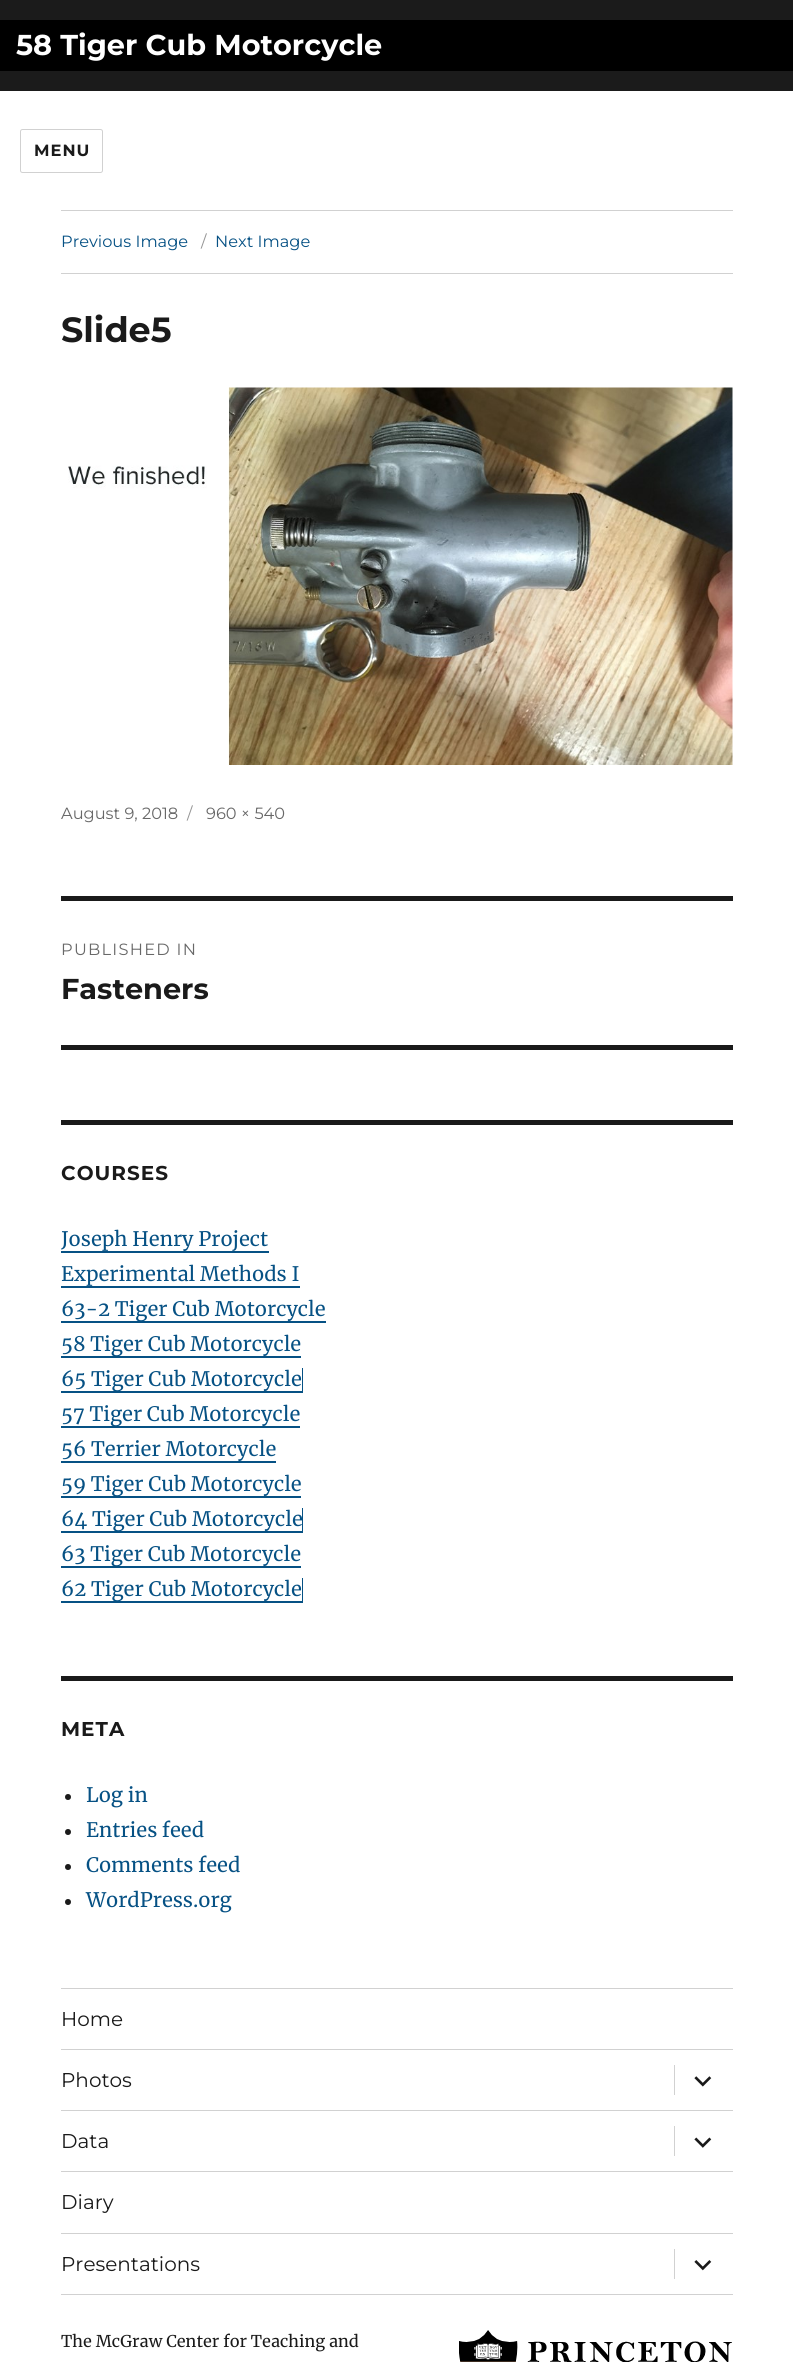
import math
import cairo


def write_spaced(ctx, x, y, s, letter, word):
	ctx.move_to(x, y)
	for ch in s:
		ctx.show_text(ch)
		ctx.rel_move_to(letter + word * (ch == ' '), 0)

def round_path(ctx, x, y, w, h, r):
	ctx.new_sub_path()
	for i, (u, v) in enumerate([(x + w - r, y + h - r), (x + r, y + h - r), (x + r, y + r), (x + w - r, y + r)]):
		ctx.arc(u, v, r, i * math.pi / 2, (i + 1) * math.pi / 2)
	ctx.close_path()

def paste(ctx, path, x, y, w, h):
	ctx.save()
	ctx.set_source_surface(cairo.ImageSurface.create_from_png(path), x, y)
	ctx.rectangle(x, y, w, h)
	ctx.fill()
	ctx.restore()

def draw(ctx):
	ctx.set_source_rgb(0.106, 0.106, 0.106)
	ctx.paint()
	ctx.set_source_rgb(0, 0, 0)
	ctx.rectangle(0, 20, 793, 51)
	ctx.fill()
	ctx.select_font_face('Montserrat Thin')
	ctx.set_font_size(28.75)
	ctx.set_source_rgb(1, 1, 1)
	ctx.move_to(16, 55)
	ctx.show_text('58 Tiger Cub Motorcycle')
	ctx.rectangle(0, 91, 793, 2271)
	ctx.fill()
	round_path(ctx, 20.5, 129.5, 82, 43, 2)
	ctx.set_source_rgb(0.82, 0.82, 0.82)
	ctx.set_line_width(1)
	ctx.stroke()
	ctx.set_font_size(16.25)
	ctx.set_source_rgb(0.102, 0.102, 0.102)
	write_spaced(ctx, 34, 156, 'MENU', 1, 0)
	ctx.set_source_rgb(0.82, 0.82, 0.82)
	ctx.rectangle(61, 210, 672, 1)
	ctx.fill()
	ctx.rectangle(61, 273, 672, 1)
	ctx.fill()
	ctx.select_font_face('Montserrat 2 Thin')
	ctx.set_source_rgb(0.024, 0.318, 0.518)
	ctx.move_to(61, 247)
	ctx.show_text('Previous Image')
	ctx.set_source_rgb(0.584, 0.584, 0.584)
	ctx.move_to(201, 247)
	ctx.show_text('/')
	ctx.set_source_rgb(0.024, 0.318, 0.518)
	ctx.move_to(215, 247)
	ctx.show_text('Next Image')
	ctx.select_font_face('Montserrat Thin')
	ctx.set_font_size(35)
	ctx.set_source_rgb(0.102, 0.102, 0.102)
	ctx.move_to(61, 342)
	ctx.show_text('Slide5')
	paste(ctx, 'media/1.png', 68, 387, 665, 378)
	ctx.select_font_face('Montserrat 2 Thin')
	ctx.set_font_size(16.25)
	ctx.set_source_rgb(0.408, 0.408, 0.408)
	ctx.move_to(61, 819)
	ctx.show_text('August 9, 2018')
	ctx.set_source_rgb(0.584, 0.584, 0.584)
	ctx.move_to(187, 819)
	ctx.show_text('/')
	ctx.set_source_rgb(0.408, 0.408, 0.408)
	ctx.move_to(206, 819)
	ctx.show_text('960 × 540')
	ctx.set_source_rgb(0.102, 0.102, 0.102)
	ctx.rectangle(61, 896, 672, 5)
	ctx.fill()
	ctx.rectangle(61, 1045, 672, 5)
	ctx.fill()
	ctx.set_source_rgb(0.408, 0.408, 0.408)
	write_spaced(ctx, 61, 955, 'PUBLISHED IN', 1.25, 0)
	ctx.select_font_face('Montserrat Thin')
	ctx.set_font_size(28.75)
	ctx.set_source_rgb(0.102, 0.102, 0.102)
	ctx.move_to(61, 999)
	ctx.show_text('Fasteners')
	ctx.rectangle(61, 1120, 672, 5)
	ctx.fill()
	ctx.set_font_size(20)
	write_spaced(ctx, 61, 1180, 'COURSES', 1, 0)
	ctx.select_font_face('Merriweather')
	ctx.set_source_rgb(0.024, 0.318, 0.518)
	ctx.move_to(61, 1246)
	ctx.show_text('Joseph Henry Project')
	ctx.new_path()
	ctx.move_to(61, 1228)
	ctx.line_to(61, 1253)
	ctx.line_to(269, 1253)
	ctx.line_to(269, 1228)
	ctx.line_to(269, 1251)
	ctx.line_to(61, 1251)
	ctx.close_path()
	ctx.fill()
	ctx.move_to(61, 1281)
	ctx.show_text('Experimental Methods I')
	ctx.new_path()
	ctx.move_to(61, 1263)
	ctx.line_to(61, 1288)
	ctx.line_to(300, 1288)
	ctx.line_to(300, 1286)
	ctx.line_to(61, 1286)
	ctx.close_path()
	ctx.fill()
	ctx.new_path()
	ctx.move_to(61, 1298)
	ctx.line_to(61, 1323)
	ctx.line_to(326, 1323)
	ctx.line_to(326, 1321)
	ctx.line_to(61, 1321)
	ctx.close_path()
	ctx.fill()
	ctx.move_to(61, 1316)
	ctx.show_text('63-2 Tiger Cub Motorcycle')
	ctx.new_path()
	ctx.move_to(61, 1333)
	ctx.line_to(61, 1358)
	ctx.line_to(301, 1358)
	ctx.line_to(301, 1356)
	ctx.line_to(61, 1356)
	ctx.close_path()
	ctx.fill()
	ctx.move_to(61, 1351)
	ctx.show_text('58 Tiger Cub Motorcycle')
	ctx.new_path()
	ctx.move_to(61, 1368)
	ctx.line_to(61, 1393)
	ctx.line_to(303, 1393)
	ctx.line_to(303, 1368)
	ctx.line_to(302, 1368)
	ctx.line_to(302, 1391)
	ctx.line_to(61, 1391)
	ctx.close_path()
	ctx.fill()
	ctx.move_to(61, 1386)
	ctx.show_text('65 Tiger Cub Motorcycle')
	ctx.new_path()
	ctx.move_to(61, 1403)
	ctx.line_to(61, 1428)
	ctx.line_to(300, 1428)
	ctx.line_to(300, 1426)
	ctx.line_to(61, 1426)
	ctx.close_path()
	ctx.fill()
	ctx.move_to(61, 1421)
	ctx.show_text('57 Tiger Cub Motorcycle')
	ctx.move_to(61, 1456)
	ctx.show_text('56 Terrier Motorcycle')
	ctx.new_path()
	ctx.move_to(61, 1438)
	ctx.line_to(61, 1463)
	ctx.line_to(276, 1463)
	ctx.line_to(276, 1461)
	ctx.line_to(61, 1461)
	ctx.close_path()
	ctx.fill()
	ctx.new_path()
	ctx.move_to(61, 1473)
	ctx.line_to(61, 1498)
	ctx.line_to(301, 1498)
	ctx.line_to(301, 1496)
	ctx.line_to(61, 1496)
	ctx.close_path()
	ctx.fill()
	ctx.move_to(61, 1491)
	ctx.show_text('59 Tiger Cub Motorcycle')
	ctx.new_path()
	ctx.move_to(61, 1508)
	ctx.line_to(61, 1533)
	ctx.line_to(303, 1533)
	ctx.line_to(303, 1508)
	ctx.line_to(302, 1508)
	ctx.line_to(302, 1531)
	ctx.line_to(61, 1531)
	ctx.close_path()
	ctx.fill()
	ctx.move_to(61, 1526)
	ctx.show_text('64 Tiger Cub Motorcycle')
	ctx.new_path()
	ctx.move_to(61, 1543)
	ctx.line_to(61, 1568)
	ctx.line_to(301, 1568)
	ctx.line_to(301, 1566)
	ctx.line_to(61, 1566)
	ctx.close_path()
	ctx.fill()
	ctx.move_to(61, 1561)
	ctx.show_text('63 Tiger Cub Motorcycle')
	ctx.new_path()
	ctx.move_to(61, 1578)
	ctx.line_to(61, 1603)
	ctx.line_to(303, 1603)
	ctx.line_to(303, 1578)
	ctx.line_to(302, 1578)
	ctx.line_to(302, 1601)
	ctx.line_to(61, 1601)
	ctx.close_path()
	ctx.fill()
	ctx.move_to(61, 1596)
	ctx.show_text('62 Tiger Cub Motorcycle')
	ctx.set_source_rgb(0.102, 0.102, 0.102)
	ctx.rectangle(61, 1676, 672, 5)
	ctx.fill()
	ctx.select_font_face('Montserrat Thin')
	write_spaced(ctx, 61, 1736, 'META', 1, 0)
	ctx.new_path()
	ctx.arc(68, 1797, 3, 0, 2 * math.pi)
	ctx.fill()
	ctx.select_font_face('Merriweather')
	ctx.set_source_rgb(0.024, 0.318, 0.518)
	ctx.move_to(86, 1802)
	ctx.show_text('Log in')
	ctx.set_source_rgb(0.102, 0.102, 0.102)
	ctx.new_path()
	ctx.arc(68, 1832, 3, 0, 2 * math.pi)
	ctx.fill()
	ctx.set_source_rgb(0.024, 0.318, 0.518)
	ctx.move_to(86, 1837)
	ctx.show_text('Entries feed')
	ctx.set_source_rgb(0.102, 0.102, 0.102)
	ctx.new_path()
	ctx.arc(68, 1867, 3, 0, 2 * math.pi)
	ctx.fill()
	ctx.set_source_rgb(0.024, 0.318, 0.518)
	ctx.move_to(86, 1872)
	ctx.show_text('Comments feed')
	ctx.set_source_rgb(0.102, 0.102, 0.102)
	ctx.new_path()
	ctx.arc(68, 1902, 3, 0, 2 * math.pi)
	ctx.fill()
	ctx.set_source_rgb(0.024, 0.318, 0.518)
	ctx.move_to(86, 1907)
	ctx.show_text('WordPress.org')
	ctx.set_source_rgb(0.82, 0.82, 0.82)
	ctx.rectangle(61, 2294, 672, 1)
	ctx.fill()
	ctx.rectangle(61, 1988, 672, 1)
	ctx.fill()
	ctx.select_font_face('Montserrat 2 Thin')
	ctx.set_source_rgb(0.102, 0.102, 0.102)
	ctx.move_to(61, 2026)
	ctx.show_text('Home')
	ctx.set_source_rgb(0.82, 0.82, 0.82)
	ctx.rectangle(61, 2049, 672, 1)
	ctx.fill()
	ctx.set_source_rgb(0.102, 0.102, 0.102)
	ctx.move_to(61, 2087)
	ctx.show_text('Photos')
	ctx.set_source_rgb(0.82, 0.82, 0.82)
	ctx.rectangle(674, 2065, 1, 30)
	ctx.fill()
	paste(ctx, 'media/2.png', 694, 2076, 18, 11)
	ctx.rectangle(61, 2110, 672, 1)
	ctx.fill()
	ctx.set_source_rgb(0.102, 0.102, 0.102)
	ctx.move_to(61, 2148)
	ctx.show_text('Data')
	ctx.set_source_rgb(0.82, 0.82, 0.82)
	ctx.rectangle(674, 2126, 1, 30)
	ctx.fill()
	paste(ctx, 'media/3.png', 694, 2137, 18, 11)
	ctx.rectangle(61, 2171, 672, 1)
	ctx.fill()
	ctx.set_source_rgb(0.102, 0.102, 0.102)
	ctx.move_to(61, 2209)
	ctx.show_text('Diary')
	ctx.set_source_rgb(0.82, 0.82, 0.82)
	ctx.rectangle(61, 2233, 672, 1)
	ctx.fill()
	ctx.set_source_rgb(0.102, 0.102, 0.102)
	ctx.move_to(61, 2271)
	ctx.show_text('Presentations')
	ctx.set_source_rgb(0.82, 0.82, 0.82)
	ctx.rectangle(674, 2249, 1, 30)
	ctx.fill()
	paste(ctx, 'media/4.png', 694, 2260, 18, 11)
	ctx.select_font_face('Merriweather')
	ctx.set_font_size(16.25)
	ctx.set_source_rgb(0.102, 0.102, 0.102)
	ctx.move_to(61, 2347)
	ctx.show_text('The McGraw Center for Teaching and')
	paste(ctx, 'media/5.png', 459, 2330, 273, 32)


surface = cairo.ImageSurface(cairo.FORMAT_RGB24, 793, 2362)
ctx = cairo.Context(surface)
options = cairo.FontOptions()
options.set_hint_metrics(cairo.HINT_METRICS_OFF)
options.set_hint_style(cairo.HINT_STYLE_NONE)
ctx.set_font_options(options)
ctx.set_miter_limit(4)
draw(ctx)
surface.write_to_png('image.png')
